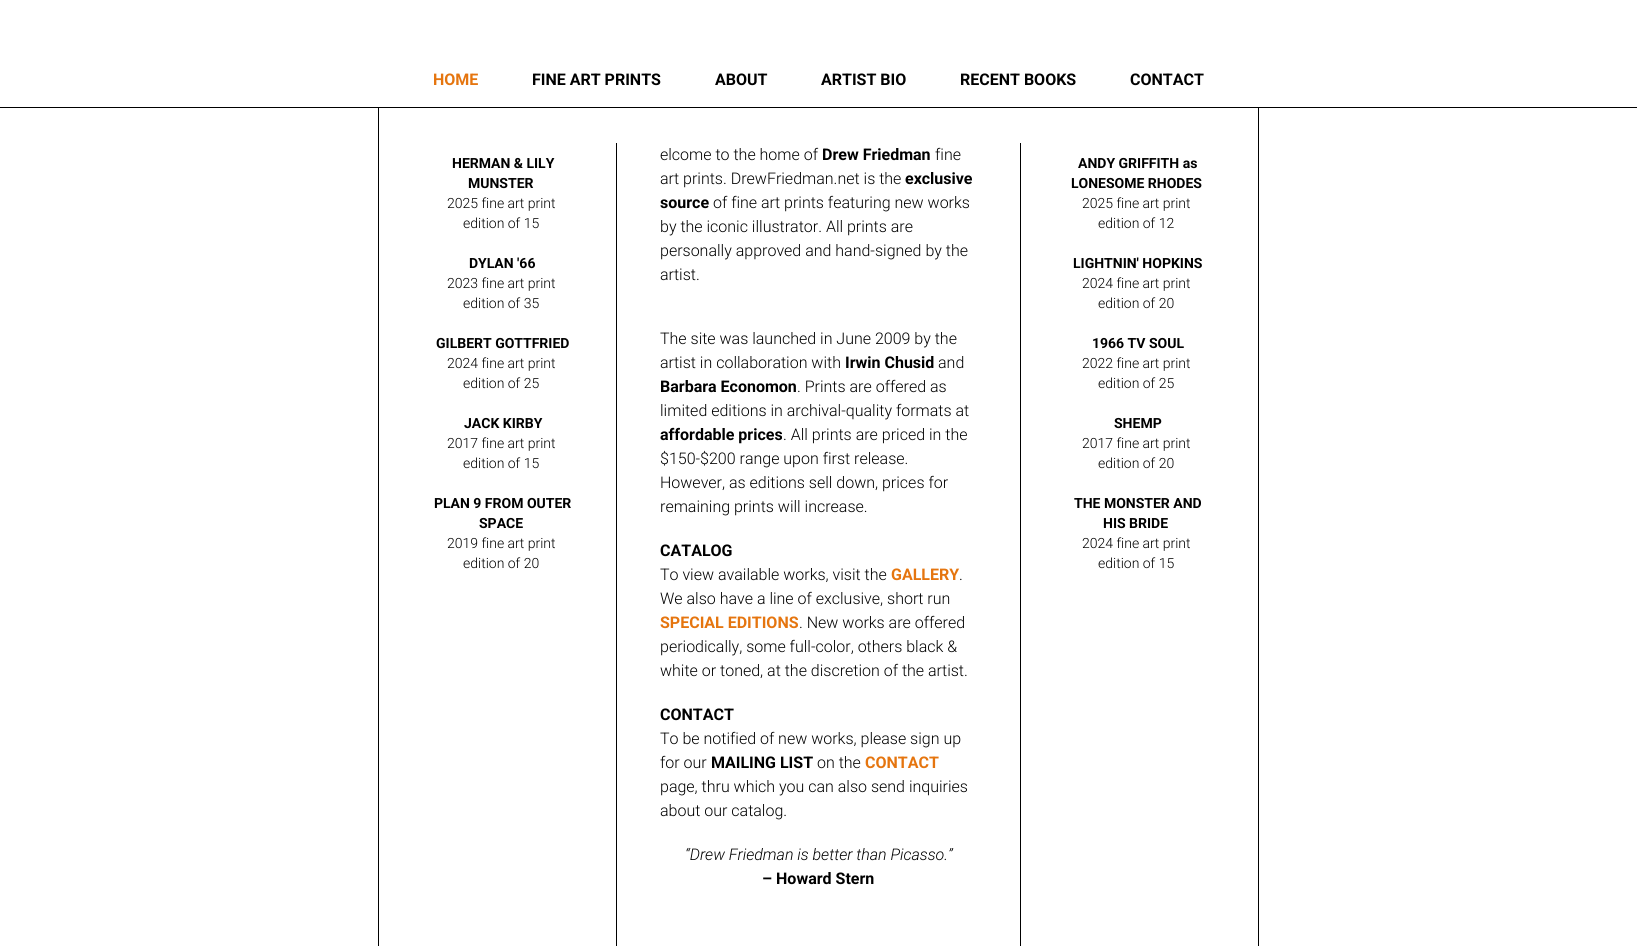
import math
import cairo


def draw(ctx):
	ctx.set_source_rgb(1, 1, 1)
	ctx.paint()
	ctx.select_font_face('Roboto', cairo.FONT_SLANT_NORMAL, cairo.FONT_WEIGHT_BOLD)
	ctx.set_font_size(16)
	ctx.set_source_rgb(0.898, 0.459, 0.059)
	ctx.move_to(433, 85)
	ctx.show_text('HOME')
	ctx.set_source_rgb(0, 0, 0)
	for x, y, s in [
		(532, 85, 'FINE ART PRINTS'),
		(715, 85, 'ABOUT'),
		(821, 85, 'ARTIST BIO'),
		(960, 85, 'RECENT BOOKS'),
		(1130, 85, 'CONTACT'),
	]:
		ctx.move_to(x, y)
		ctx.show_text(s)
	ctx.rectangle(0, 107, 1637, 1)
	ctx.rectangle(1258, 108, 1, 838)
	ctx.rectangle(378, 108, 1, 838)
	ctx.fill()
	ctx.set_font_size(14)
	ctx.move_to(452, 168)
	ctx.show_text('HERMAN & LILY')
	ctx.move_to(468, 188)
	ctx.show_text('MUNSTER')
	ctx.select_font_face('Roboto Light')
	ctx.move_to(447, 208)
	ctx.show_text('2025 fine art print')
	ctx.move_to(463, 228)
	ctx.show_text('edition of 15')
	ctx.select_font_face('Roboto', cairo.FONT_SLANT_NORMAL, cairo.FONT_WEIGHT_BOLD)
	ctx.move_to(469, 268)
	ctx.show_text('DYLAN \'66')
	ctx.select_font_face('Roboto Light')
	ctx.move_to(447, 288)
	ctx.show_text('2023 fine art print')
	ctx.move_to(463, 308)
	ctx.show_text('edition of 35')
	ctx.select_font_face('Roboto', cairo.FONT_SLANT_NORMAL, cairo.FONT_WEIGHT_BOLD)
	ctx.move_to(436, 348)
	ctx.show_text('GILBERT GOTTFRIED')
	ctx.select_font_face('Roboto Light')
	ctx.move_to(447, 368)
	ctx.show_text('2024 fine art print')
	ctx.move_to(463, 388)
	ctx.show_text('edition of 25')
	ctx.select_font_face('Roboto', cairo.FONT_SLANT_NORMAL, cairo.FONT_WEIGHT_BOLD)
	ctx.move_to(464, 428)
	ctx.show_text('JACK KIRBY')
	ctx.select_font_face('Roboto Light')
	ctx.move_to(447, 448)
	ctx.show_text('2017 fine art print')
	ctx.move_to(463, 468)
	ctx.show_text('edition of 15')
	ctx.select_font_face('Roboto', cairo.FONT_SLANT_NORMAL, cairo.FONT_WEIGHT_BOLD)
	ctx.move_to(434, 508)
	ctx.show_text('PLAN 9 FROM OUTER')
	ctx.move_to(479, 528)
	ctx.show_text('SPACE')
	ctx.select_font_face('Roboto Light')
	ctx.move_to(447, 548)
	ctx.show_text('2019 fine art print')
	ctx.move_to(463, 568)
	ctx.show_text('edition of 20')
	ctx.rectangle(1020, 143, 1, 803)
	ctx.fill()
	ctx.rectangle(616, 143, 1, 803)
	ctx.fill()
	ctx.set_font_size(16)
	ctx.move_to(660, 160)
	ctx.show_text('elcome to the home of')
	ctx.select_font_face('Roboto', cairo.FONT_SLANT_NORMAL, cairo.FONT_WEIGHT_BOLD)
	ctx.move_to(822, 160)
	ctx.show_text('Drew Friedman')
	ctx.select_font_face('Roboto Light')
	ctx.move_to(935, 160)
	ctx.show_text('fine')
	ctx.move_to(660, 184)
	ctx.show_text('art prints. DrewFriedman.net is the')
	ctx.select_font_face('Roboto', cairo.FONT_SLANT_NORMAL, cairo.FONT_WEIGHT_BOLD)
	ctx.move_to(905, 184)
	ctx.show_text('exclusive')
	ctx.move_to(660, 208)
	ctx.show_text('source')
	ctx.select_font_face('Roboto Light')
	for x, y, s in [
		(713, 208, 'of fine art prints featuring new works'),
		(660, 232, 'by the iconic illustrator. All prints are'),
		(660, 256, 'personally approved and hand-signed by the'),
		(660, 280, 'artist.'),
		(660, 344, 'The site was launched in June 2009 by the'),
		(660, 368, 'artist in collaboration with'),
	]:
		ctx.move_to(x, y)
		ctx.show_text(s)
	ctx.select_font_face('Roboto', cairo.FONT_SLANT_NORMAL, cairo.FONT_WEIGHT_BOLD)
	ctx.move_to(845, 368)
	ctx.show_text('Irwin Chusid')
	ctx.select_font_face('Roboto Light')
	ctx.move_to(938, 368)
	ctx.show_text('and')
	ctx.select_font_face('Roboto', cairo.FONT_SLANT_NORMAL, cairo.FONT_WEIGHT_BOLD)
	ctx.move_to(660, 392)
	ctx.show_text('Barbara Economon')
	ctx.select_font_face('Roboto Light')
	ctx.move_to(797, 392)
	ctx.show_text('. Prints are offered as')
	ctx.move_to(660, 416)
	ctx.show_text('limited editions in archival-quality formats at')
	ctx.select_font_face('Roboto', cairo.FONT_SLANT_NORMAL, cairo.FONT_WEIGHT_BOLD)
	ctx.move_to(660, 440)
	ctx.show_text('affordable prices')
	ctx.select_font_face('Roboto Light')
	for x, y, s in [
		(783, 440, '. All prints are priced in the'),
		(660, 464, '$150-$200 range upon first release.'),
		(660, 488, 'However, as editions sell down, prices for'),
		(660, 512, 'remaining prints will increase.'),
	]:
		ctx.move_to(x, y)
		ctx.show_text(s)
	ctx.select_font_face('Roboto', cairo.FONT_SLANT_NORMAL, cairo.FONT_WEIGHT_BOLD)
	ctx.move_to(660, 556)
	ctx.show_text('CATALOG')
	ctx.select_font_face('Roboto Light')
	ctx.move_to(660, 580)
	ctx.show_text('To view available works, visit the')
	ctx.select_font_face('Roboto', cairo.FONT_SLANT_NORMAL, cairo.FONT_WEIGHT_BOLD)
	ctx.set_source_rgb(0.898, 0.459, 0.059)
	ctx.move_to(891, 580)
	ctx.show_text('GALLERY')
	ctx.select_font_face('Roboto Light')
	ctx.set_source_rgb(0, 0, 0)
	ctx.move_to(959, 580)
	ctx.show_text('.')
	ctx.move_to(660, 604)
	ctx.show_text('We also have a line of exclusive, short run')
	ctx.select_font_face('Roboto', cairo.FONT_SLANT_NORMAL, cairo.FONT_WEIGHT_BOLD)
	ctx.set_source_rgb(0.898, 0.459, 0.059)
	ctx.move_to(660, 628)
	ctx.show_text('SPECIAL EDITIONS')
	ctx.select_font_face('Roboto Light')
	ctx.set_source_rgb(0, 0, 0)
	for x, y, s in [
		(799, 628, '. New works are offered'),
		(660, 652, 'periodically, some full-color, others black &'),
		(660, 676, 'white or toned, at the discretion of the artist.'),
	]:
		ctx.move_to(x, y)
		ctx.show_text(s)
	ctx.select_font_face('Roboto', cairo.FONT_SLANT_NORMAL, cairo.FONT_WEIGHT_BOLD)
	ctx.move_to(660, 720)
	ctx.show_text('CONTACT')
	ctx.select_font_face('Roboto Light')
	ctx.move_to(660, 744)
	ctx.show_text('To be notified of new works, please sign up')
	ctx.move_to(660, 768)
	ctx.show_text('for our')
	ctx.select_font_face('Roboto', cairo.FONT_SLANT_NORMAL, cairo.FONT_WEIGHT_BOLD)
	ctx.move_to(711, 768)
	ctx.show_text('MAILING LIST')
	ctx.select_font_face('Roboto Light')
	ctx.move_to(817, 768)
	ctx.show_text('on the')
	ctx.select_font_face('Roboto', cairo.FONT_SLANT_NORMAL, cairo.FONT_WEIGHT_BOLD)
	ctx.set_source_rgb(0.898, 0.459, 0.059)
	ctx.move_to(865, 768)
	ctx.show_text('CONTACT')
	ctx.select_font_face('Roboto Light')
	ctx.set_source_rgb(0, 0, 0)
	ctx.move_to(660, 792)
	ctx.show_text('page, thru which you can also send inquiries')
	ctx.move_to(660, 816)
	ctx.show_text('about our catalog.')
	ctx.select_font_face('Roboto Light', cairo.FONT_SLANT_ITALIC)
	ctx.move_to(685, 860)
	ctx.show_text('“Drew Friedman is better than Picasso.”')
	ctx.select_font_face('Roboto', cairo.FONT_SLANT_NORMAL, cairo.FONT_WEIGHT_BOLD)
	ctx.move_to(762, 884)
	ctx.show_text('– Howard Stern')
	ctx.set_font_size(14)
	ctx.move_to(1078, 168)
	ctx.show_text('ANDY GRIFFITH as')
	ctx.move_to(1071, 188)
	ctx.show_text('LONESOME RHODES')
	ctx.select_font_face('Roboto Light')
	ctx.move_to(1082, 208)
	ctx.show_text('2025 fine art print')
	ctx.move_to(1098, 228)
	ctx.show_text('edition of 12')
	ctx.select_font_face('Roboto', cairo.FONT_SLANT_NORMAL, cairo.FONT_WEIGHT_BOLD)
	ctx.move_to(1073, 268)
	ctx.show_text('LIGHTNIN\' HOPKINS')
	ctx.select_font_face('Roboto Light')
	ctx.move_to(1082, 288)
	ctx.show_text('2024 fine art print')
	ctx.move_to(1098, 308)
	ctx.show_text('edition of 20')
	ctx.select_font_face('Roboto', cairo.FONT_SLANT_NORMAL, cairo.FONT_WEIGHT_BOLD)
	ctx.move_to(1092, 348)
	ctx.show_text('1966 TV SOUL')
	ctx.select_font_face('Roboto Light')
	ctx.move_to(1082, 368)
	ctx.show_text('2022 fine art print')
	ctx.move_to(1098, 388)
	ctx.show_text('edition of 25')
	ctx.select_font_face('Roboto', cairo.FONT_SLANT_NORMAL, cairo.FONT_WEIGHT_BOLD)
	ctx.move_to(1114, 428)
	ctx.show_text('SHEMP')
	ctx.select_font_face('Roboto Light')
	ctx.move_to(1082, 448)
	ctx.show_text('2017 fine art print')
	ctx.move_to(1098, 468)
	ctx.show_text('edition of 20')
	ctx.select_font_face('Roboto', cairo.FONT_SLANT_NORMAL, cairo.FONT_WEIGHT_BOLD)
	ctx.move_to(1074, 508)
	ctx.show_text('THE MONSTER AND')
	ctx.move_to(1103, 528)
	ctx.show_text('HIS BRIDE')
	ctx.select_font_face('Roboto Light')
	ctx.move_to(1082, 548)
	ctx.show_text('2024 fine art print')
	ctx.move_to(1098, 568)
	ctx.show_text('edition of 15')


surface = cairo.ImageSurface(cairo.FORMAT_RGB24, 1637, 946)
ctx = cairo.Context(surface)
options = cairo.FontOptions()
options.set_hint_metrics(cairo.HINT_METRICS_OFF)
options.set_hint_style(cairo.HINT_STYLE_NONE)
ctx.set_font_options(options)
ctx.set_miter_limit(4)
draw(ctx)
surface.write_to_png('image.png')
